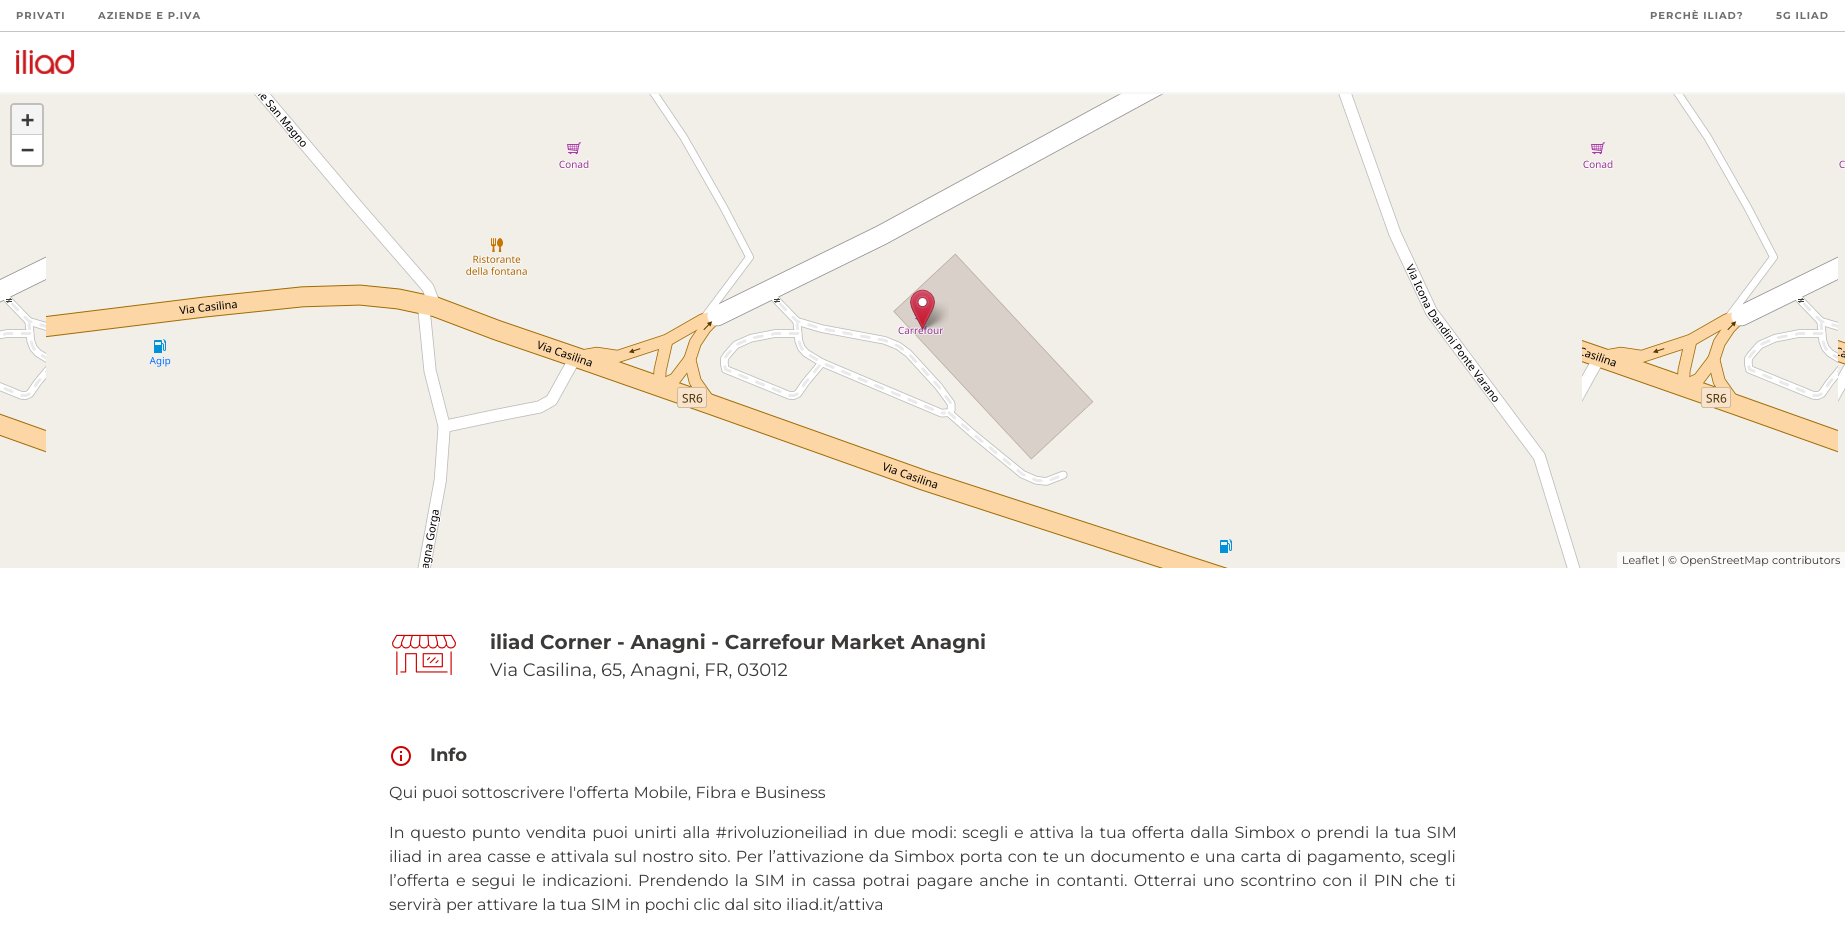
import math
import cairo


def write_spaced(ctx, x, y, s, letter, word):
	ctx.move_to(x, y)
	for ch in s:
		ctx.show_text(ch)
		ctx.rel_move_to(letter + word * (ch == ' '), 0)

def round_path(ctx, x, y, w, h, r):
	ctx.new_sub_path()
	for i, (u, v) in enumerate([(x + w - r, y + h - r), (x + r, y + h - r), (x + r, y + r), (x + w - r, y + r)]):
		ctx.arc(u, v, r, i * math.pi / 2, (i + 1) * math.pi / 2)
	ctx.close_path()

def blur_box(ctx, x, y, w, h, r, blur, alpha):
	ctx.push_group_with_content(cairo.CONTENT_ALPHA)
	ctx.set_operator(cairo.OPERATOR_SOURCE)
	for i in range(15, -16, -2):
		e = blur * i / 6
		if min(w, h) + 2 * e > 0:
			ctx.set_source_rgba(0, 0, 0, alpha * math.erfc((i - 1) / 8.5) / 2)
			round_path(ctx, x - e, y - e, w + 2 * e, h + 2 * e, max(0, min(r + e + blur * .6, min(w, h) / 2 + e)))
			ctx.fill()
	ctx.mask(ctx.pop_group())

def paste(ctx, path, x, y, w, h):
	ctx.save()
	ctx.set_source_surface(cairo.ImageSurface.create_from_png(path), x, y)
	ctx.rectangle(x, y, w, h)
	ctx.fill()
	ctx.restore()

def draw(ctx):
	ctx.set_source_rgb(1, 1, 1)
	ctx.paint()
	ctx.set_source_rgb(0.949, 0.937, 0.914)
	ctx.rectangle(0, 93, 46, 82)
	ctx.fill()
	paste(ctx, 'media/2.png', 46, 93, 256, 82)
	paste(ctx, 'media/3.png', 302, 93, 256, 82)
	paste(ctx, 'media/4.png', 558, 93, 256, 82)
	paste(ctx, 'media/5.png', 814, 93, 256, 82)
	paste(ctx, 'media/6.png', 1070, 93, 256, 82)
	paste(ctx, 'media/7.png', 1326, 93, 256, 82)
	paste(ctx, 'media/4.png', 1582, 93, 256, 82)
	paste(ctx, 'media/8.png', 1838, 93, 7, 82)
	ctx.save()
	ctx.rectangle(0, 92, 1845, 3)
	ctx.clip()
	ctx.set_source_rgb(0.965, 0.965, 0.965)
	blur_box(ctx, 0, 34, 1845, 60, 0, 0.5, 1)
	ctx.restore()
	ctx.set_source_rgb(0.769, 0.769, 0.769)
	ctx.rectangle(0, 31, 1845, 1)
	ctx.fill()
	ctx.select_font_face('Montserrat Thin')
	ctx.set_font_size(10)
	ctx.set_source_rgb(0.435, 0.435, 0.435)
	for x, y, s in [
		(16, 19, 'PRIVATI'),
		(98, 19, 'AZIENDE E P.IVA'),
		(1650, 19, 'PERCHÈ ILIAD?'),
		(1776, 19, '5G ILIAD'),
	]:
		write_spaced(ctx, x, y, s, 1, 0)
	paste(ctx, 'media/1.png', 16, 50, 59, 24)
	paste(ctx, 'media/9.png', 0, 175, 46, 256)
	paste(ctx, 'media/10.png', 46, 175, 256, 256)
	paste(ctx, 'media/11.png', 302, 175, 256, 256)
	paste(ctx, 'media/12.png', 558, 175, 256, 256)
	paste(ctx, 'media/13.png', 814, 175, 256, 256)
	paste(ctx, 'media/14.png', 1070, 175, 256, 256)
	paste(ctx, 'media/15.png', 1326, 175, 256, 256)
	paste(ctx, 'media/12.png', 1582, 175, 256, 256)
	paste(ctx, 'media/16.png', 1838, 175, 7, 256)
	paste(ctx, 'media/17.png', 0, 431, 46, 137)
	ctx.set_source_rgb(0.949, 0.937, 0.914)
	ctx.rectangle(46, 431, 256, 137)
	ctx.fill()
	paste(ctx, 'media/18.png', 302, 431, 256, 137)
	paste(ctx, 'media/19.png', 558, 431, 256, 137)
	paste(ctx, 'media/20.png', 814, 431, 256, 137)
	paste(ctx, 'media/21.png', 1070, 431, 256, 137)
	paste(ctx, 'media/22.png', 1326, 431, 256, 137)
	paste(ctx, 'media/19.png', 1582, 431, 256, 137)
	ctx.rectangle(1838, 431, 7, 121)
	ctx.fill()
	paste(ctx, 'media/24.png', 920, 302, 29, 28)
	paste(ctx, 'media/23.png', 910, 289, 25, 41)
	round_path(ctx, 11, 104, 32, 62, 3)
	ctx.set_source_rgb(0.761, 0.749, 0.729)
	ctx.stroke()
	ctx.set_source_rgb(0.957, 0.957, 0.957)
	ctx.new_path()
	ctx.move_to(14, 105)
	ctx.line_to(40, 105)
	ctx.curve_to(41, 105, 42, 106, 42, 107)
	ctx.line_to(42, 135)
	ctx.line_to(12, 135)
	ctx.line_to(12, 107)
	ctx.curve_to(12, 106, 13, 105, 14, 105)
	ctx.close_path()
	ctx.fill()
	ctx.set_source_rgb(0.8, 0.8, 0.8)
	ctx.rectangle(12, 134, 30, 1)
	ctx.fill()
	ctx.select_font_face('DejaVu Sans Mono', cairo.FONT_SLANT_NORMAL, cairo.FONT_WEIGHT_BOLD)
	ctx.set_font_size(22)
	ctx.set_source_rgb(0.235, 0.227, 0.224)
	ctx.move_to(21, 127)
	ctx.show_text('+')
	ctx.set_source_rgb(1, 1, 1)
	ctx.new_path()
	ctx.move_to(12, 135)
	ctx.line_to(42, 135)
	ctx.line_to(42, 163)
	ctx.curve_to(42, 164, 41, 165, 40, 165)
	ctx.line_to(14, 165)
	ctx.curve_to(13, 165, 12, 164, 12, 163)
	ctx.close_path()
	ctx.fill()
	ctx.set_source_rgb(0.235, 0.227, 0.224)
	ctx.move_to(21, 157)
	ctx.show_text('−')
	ctx.set_source_rgb(0.984, 0.98, 0.973)
	ctx.rectangle(1617, 552, 228, 16)
	ctx.fill()
	ctx.select_font_face('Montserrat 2 Thin')
	ctx.set_font_size(11)
	ctx.set_source_rgb(0.235, 0.227, 0.224)
	ctx.move_to(1622, 564)
	ctx.show_text('Leaflet')
	ctx.set_source_rgb(0.2, 0.2, 0.2)
	ctx.move_to(1662, 564)
	ctx.show_text('| ©')
	ctx.set_source_rgb(0.235, 0.227, 0.224)
	ctx.move_to(1680, 564)
	ctx.show_text('OpenStreetMap')
	ctx.set_source_rgb(0.2, 0.2, 0.2)
	ctx.move_to(1772, 564)
	ctx.show_text('contributors')
	paste(ctx, 'media/25.png', 392, 634, 64, 42)
	ctx.select_font_face('Montserrat Thin')
	ctx.set_font_size(20)
	ctx.set_source_rgb(0.235, 0.227, 0.224)
	ctx.move_to(490, 649)
	ctx.show_text('iliad Corner - Anagni - Carrefour Market Anagni')
	ctx.select_font_face('Montserrat 2 Thin')
	ctx.set_font_size(18)
	ctx.move_to(490, 676)
	ctx.show_text('Via Casilina, 65, Anagni, FR, 03012')
	paste(ctx, 'media/26.png', 391, 746, 20, 20)
	ctx.select_font_face('Montserrat Thin')
	ctx.move_to(430, 761)
	ctx.show_text('Info')
	ctx.select_font_face('Montserrat 2 Thin')
	ctx.set_font_size(16)
	ctx.move_to(389, 798)
	ctx.show_text('Qui puoi sottoscrivere l\'offerta Mobile, Fibra e Business')
	write_spaced(ctx, 389, 838, 'In questo punto vendita puoi unirti alla #rivoluzioneiliad in due modi: scegli e attiva la tua offerta dalla Simbox o prendi la tua SIM', 0, 1.5)
	write_spaced(ctx, 389, 862, 'iliad in area casse e attivala sul nostro sito. Per l’attivazione da Simbox porta con te un documento e una carta di pagamento, scegli', 0, 0.8)
	write_spaced(ctx, 389, 886, 'l’offerta e segui le indicazioni. Prendendo la SIM in cassa potrai pagare anche in contanti. Otterrai uno scontrino con il PIN che ti', 0, 2.1)
	ctx.move_to(389, 910)
	ctx.show_text('servirà per attivare la tua SIM in pochi clic dal sito iliad.it/attiva')


surface = cairo.ImageSurface(cairo.FORMAT_RGB24, 1845, 950)
ctx = cairo.Context(surface)
options = cairo.FontOptions()
options.set_hint_metrics(cairo.HINT_METRICS_OFF)
options.set_hint_style(cairo.HINT_STYLE_NONE)
ctx.set_font_options(options)
ctx.set_miter_limit(4)
draw(ctx)
surface.write_to_png('image.png')
